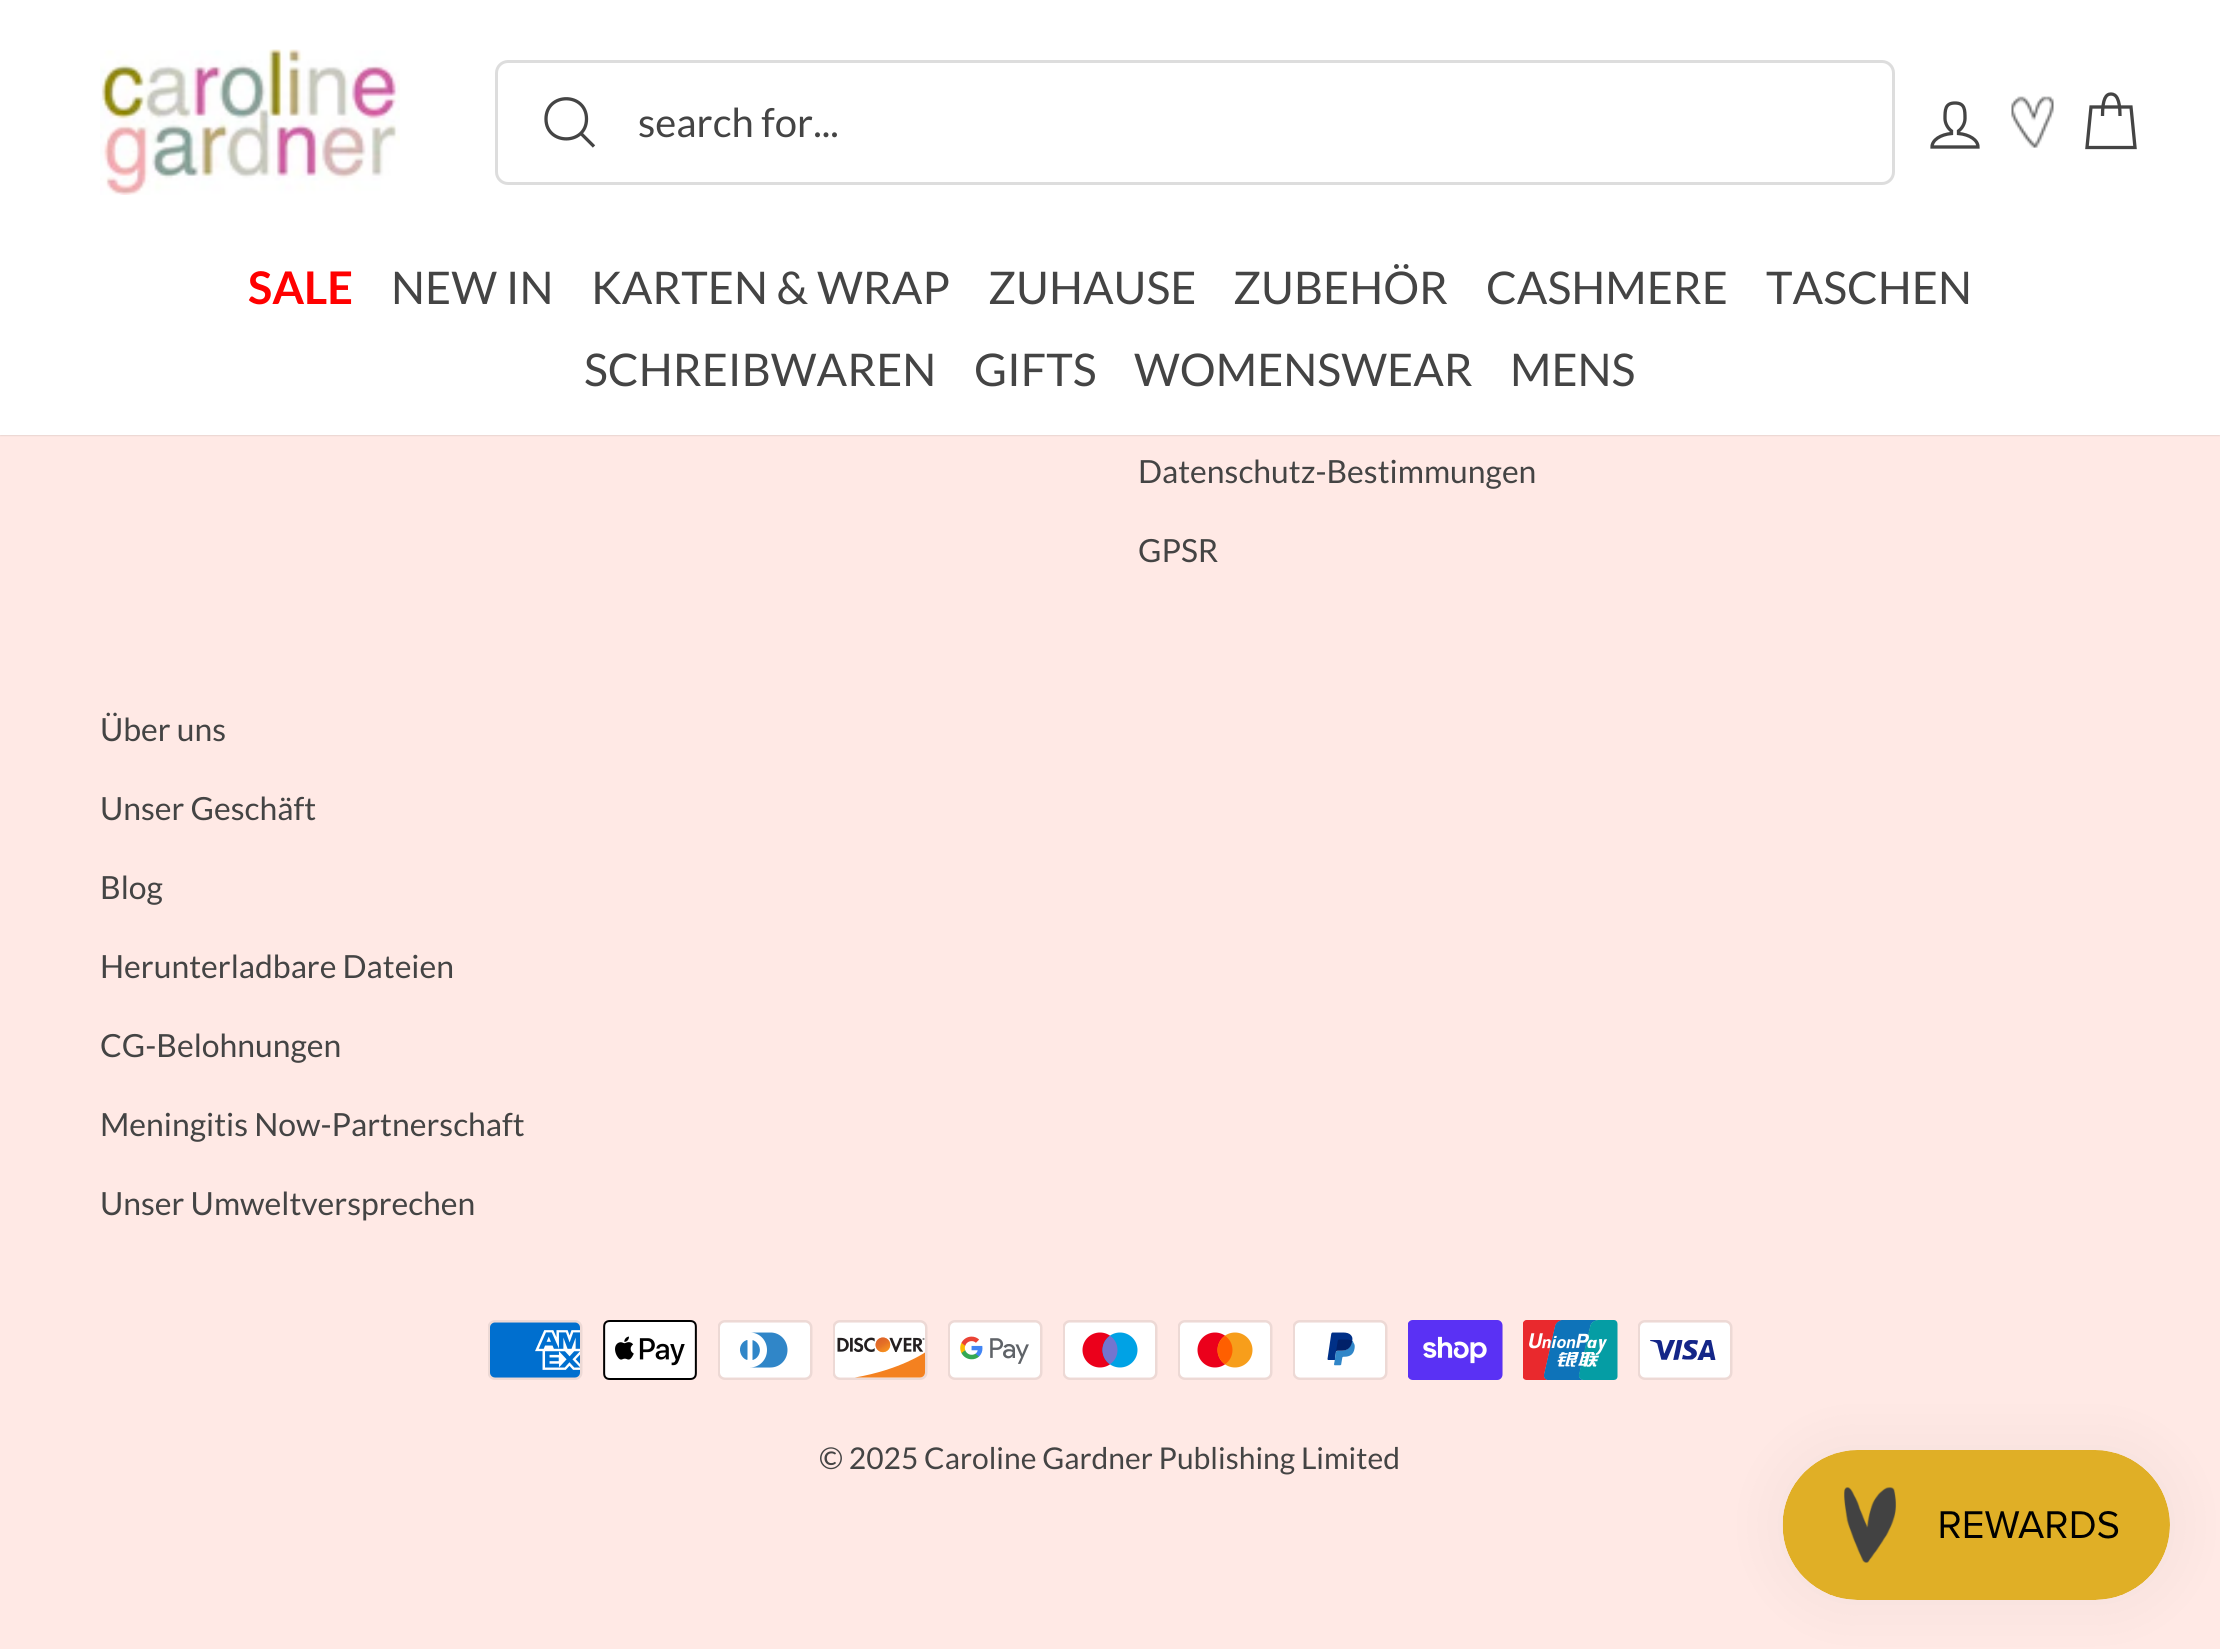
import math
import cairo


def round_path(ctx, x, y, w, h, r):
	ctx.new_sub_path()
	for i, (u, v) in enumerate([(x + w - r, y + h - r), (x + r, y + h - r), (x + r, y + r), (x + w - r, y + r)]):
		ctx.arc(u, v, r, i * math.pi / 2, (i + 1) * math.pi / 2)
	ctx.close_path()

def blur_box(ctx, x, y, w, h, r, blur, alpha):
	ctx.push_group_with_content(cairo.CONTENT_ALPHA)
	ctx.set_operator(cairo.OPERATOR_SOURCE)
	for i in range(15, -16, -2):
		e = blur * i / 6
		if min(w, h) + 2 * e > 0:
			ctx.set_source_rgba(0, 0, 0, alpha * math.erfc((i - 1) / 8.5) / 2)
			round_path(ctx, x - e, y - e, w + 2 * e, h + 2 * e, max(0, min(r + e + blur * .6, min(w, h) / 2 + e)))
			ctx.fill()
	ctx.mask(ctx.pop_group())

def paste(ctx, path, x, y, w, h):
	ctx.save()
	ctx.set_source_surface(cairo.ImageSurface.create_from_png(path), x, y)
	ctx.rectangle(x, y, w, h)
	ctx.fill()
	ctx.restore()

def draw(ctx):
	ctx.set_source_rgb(1, 0.914, 0.898)
	ctx.paint()
	ctx.set_source_rgb(0, 0, 0)
	blur_box(ctx, 0, 0, 2220, 435, 0, 1, 0.2)
	ctx.set_source_rgb(1, 1, 1)
	ctx.rectangle(0, 0, 2220, 435)
	ctx.fill()
	paste(ctx, 'media/1.png', 100, 49, 300, 146)
	round_path(ctx, 496.5, 61.5, 1397, 122, 11.5)
	ctx.set_source_rgb(0.867, 0.867, 0.867)
	ctx.set_line_width(3)
	ctx.stroke()
	ctx.new_path()
	ctx.move_to(586.5, 119)
	ctx.curve_to(586.5, 145.5, 546, 145.5, 546, 119)
	ctx.curve_to(546, 92, 586.5, 92, 586.5, 119)
	ctx.close_path()
	ctx.move_to(594, 146.5)
	ctx.line_to(581, 133.5)
	ctx.set_source_rgb(0.267, 0.267, 0.267)
	ctx.set_line_width(3.3)
	ctx.stroke()
	ctx.select_font_face('Lato')
	ctx.set_font_size(40)
	ctx.move_to(638, 137)
	ctx.show_text('search for...')
	ctx.new_path()
	ctx.move_to(1958.5, 133.5)
	ctx.line_to(1958.5, 131)
	ctx.curve_to(1962, 128.5, 1965, 123.5, 1965, 118.5)
	ctx.curve_to(1965, 110, 1965, 103, 1955, 103)
	ctx.curve_to(1945, 103, 1945, 110, 1945, 118.5)
	ctx.curve_to(1945, 123.5, 1948, 128.5, 1951.5, 131)
	ctx.line_to(1951.5, 133.5)
	ctx.curve_to(1940.5, 134.5, 1932, 140, 1932, 147)
	ctx.line_to(1978, 147)
	ctx.curve_to(1978, 140, 1969.5, 134.5, 1958.5, 133.5)
	ctx.close_path()
	ctx.stroke()
	paste(ctx, 'media/2.png', 2011, 96, 43, 52)
	ctx.new_path()
	ctx.move_to(2102.5, 116)
	ctx.curve_to(2102.5, 98.5, 2106, 94, 2111, 94)
	ctx.curve_to(2116, 94, 2120, 98.5, 2120, 116)
	ctx.move_to(2091, 107)
	ctx.line_to(2131, 107)
	ctx.line_to(2135, 147.5)
	ctx.line_to(2087, 147.5)
	ctx.close_path()
	ctx.stroke()
	ctx.select_font_face('Lato', cairo.FONT_SLANT_NORMAL, cairo.FONT_WEIGHT_BOLD)
	ctx.set_font_size(45)
	ctx.set_source_rgb(1, 0, 0)
	ctx.move_to(248, 304)
	ctx.show_text('SALE')
	ctx.select_font_face('Lato')
	ctx.set_source_rgb(0.267, 0.267, 0.267)
	for x, y, s in [
		(391, 304, 'NEW IN'),
		(591, 304, 'KARTEN & WRAP'),
		(988, 304, 'ZUHAUSE'),
		(1233, 304, 'ZUBEHÖR'),
		(1486, 304, 'CASHMERE'),
		(1766, 304, 'TASCHEN'),
		(584, 386, 'SCHREIBWAREN'),
		(974, 386, 'GIFTS'),
		(1134, 386, 'WOMENSWEAR'),
		(1510, 386, 'MENS'),
	]:
		ctx.move_to(x, y)
		ctx.show_text(s)
	ctx.set_font_size(31.9)
	for x, y, s in [
		(1138, 483, 'Datenschutz-Bestimmungen'),
		(1138, 562, 'GPSR'),
		(100, 741, 'Über uns'),
		(100, 820, 'Unser Geschäft'),
		(100, 899, 'Blog'),
		(100, 978, 'Herunterladbare Dateien'),
		(100, 1057, 'CG-Belohnungen'),
		(100, 1136, 'Meningitis Now-Partnerschaft'),
		(100, 1215, 'Unser Umweltversprechen'),
	]:
		ctx.move_to(x, y)
		ctx.show_text(s)
	paste(ctx, 'media/3.png', 488, 1320, 95, 60)
	paste(ctx, 'media/4.png', 603, 1320, 94, 60)
	paste(ctx, 'media/5.png', 718, 1320, 95, 60)
	paste(ctx, 'media/6.png', 833, 1320, 95, 60)
	paste(ctx, 'media/7.png', 948, 1320, 95, 60)
	paste(ctx, 'media/8.png', 1063, 1320, 95, 60)
	paste(ctx, 'media/9.png', 1178, 1320, 95, 60)
	paste(ctx, 'media/10.png', 1293, 1320, 95, 60)
	paste(ctx, 'media/11.png', 1408, 1320, 95, 60)
	paste(ctx, 'media/12.png', 1523, 1320, 95, 60)
	paste(ctx, 'media/13.png', 1638, 1320, 95, 60)
	ctx.set_font_size(30)
	ctx.move_to(819, 1469)
	ctx.show_text('© 2025 Caroline Gardner Publishing Limited')
	ctx.set_source_rgb(0, 0, 0)
	blur_box(ctx, 1783, 1450, 387, 150, 75, 31, 0.05)
	paste(ctx, 'media/14.png', 1782, 1450, 388, 150)


surface = cairo.ImageSurface(cairo.FORMAT_RGB24, 2220, 1649)
ctx = cairo.Context(surface)
options = cairo.FontOptions()
options.set_hint_metrics(cairo.HINT_METRICS_OFF)
options.set_hint_style(cairo.HINT_STYLE_NONE)
ctx.set_font_options(options)
ctx.set_miter_limit(4)
draw(ctx)
surface.write_to_png('image.png')
